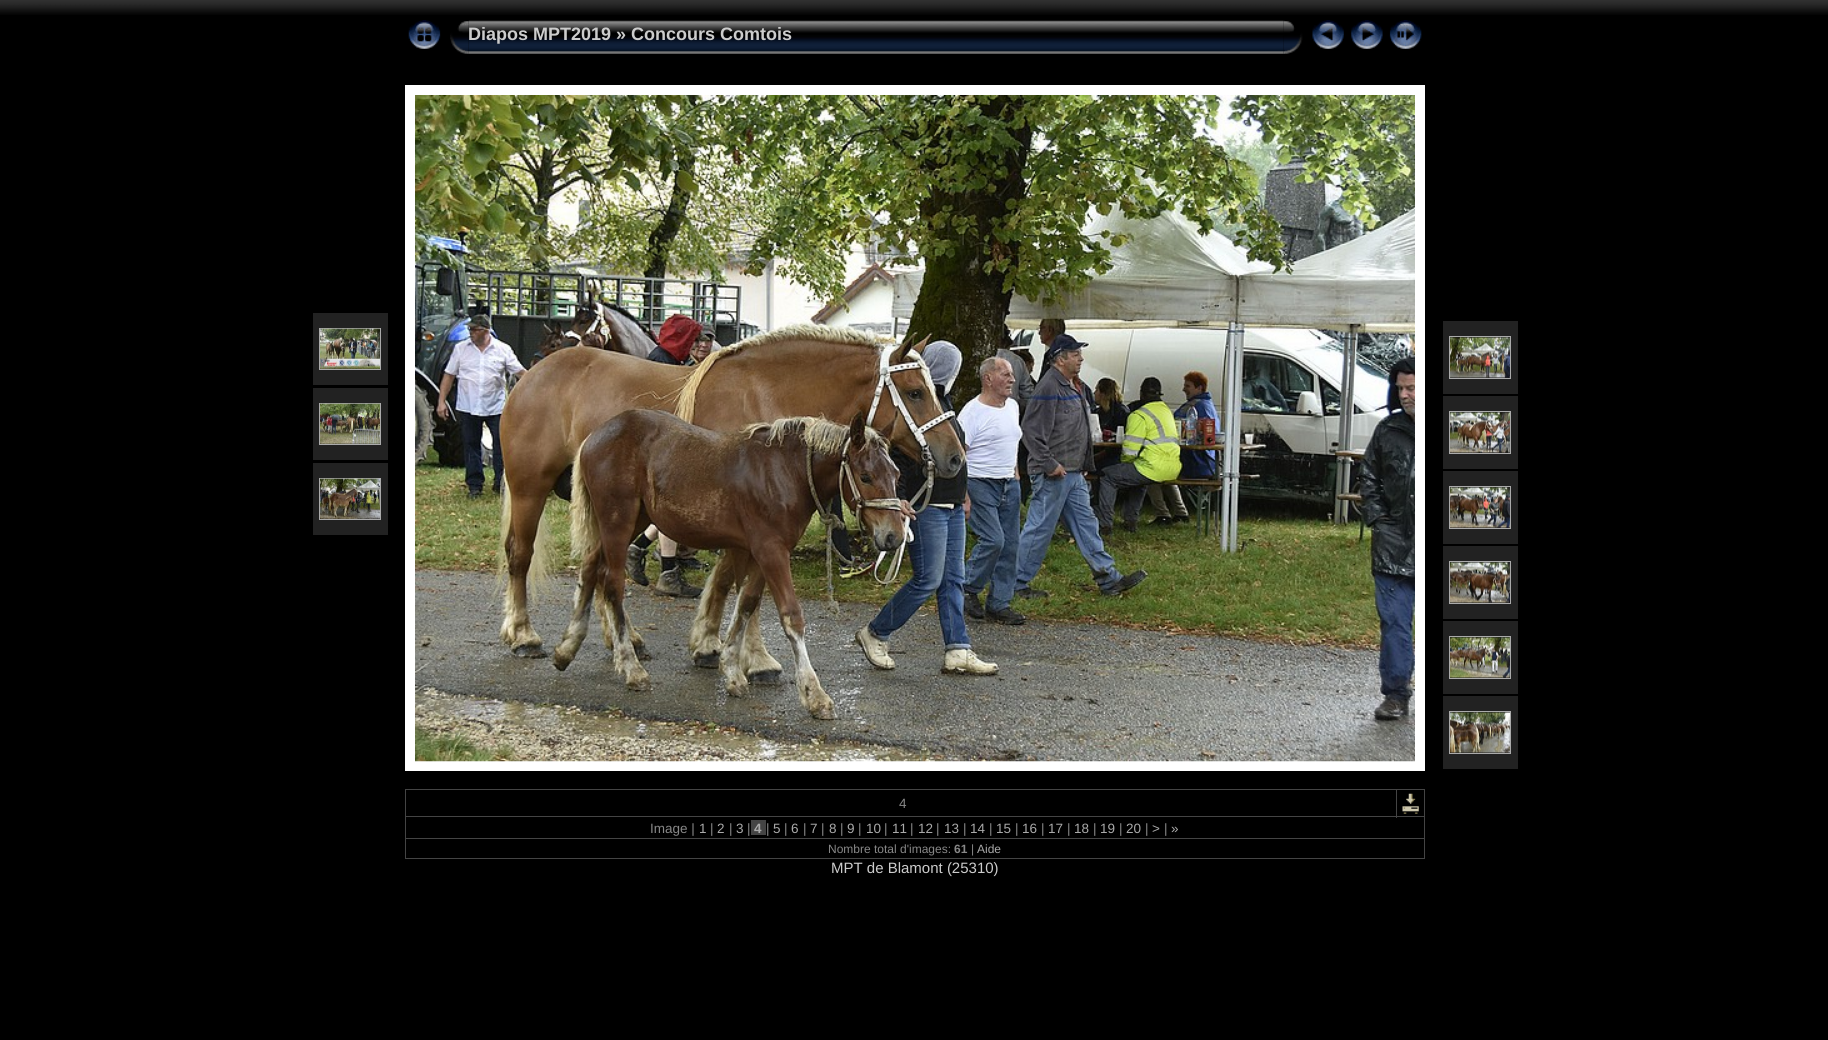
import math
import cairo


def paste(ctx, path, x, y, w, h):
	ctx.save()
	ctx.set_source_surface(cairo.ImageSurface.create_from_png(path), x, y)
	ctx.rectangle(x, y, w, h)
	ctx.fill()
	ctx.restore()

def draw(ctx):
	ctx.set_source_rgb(0, 0, 0)
	ctx.paint()
	paste(ctx, 'media/1.png', 0, 0, 1828, 15)
	paste(ctx, 'media/2.png', 408, 20, 33, 29)
	paste(ctx, 'media/4.png', 468, 20, 816, 34)
	paste(ctx, 'media/3.png', 450, 21, 19, 33)
	ctx.select_font_face('Liberation Sans', cairo.FONT_SLANT_NORMAL, cairo.FONT_WEIGHT_BOLD)
	ctx.set_font_size(18)
	ctx.set_source_rgb(0.8, 0.8, 0.8)
	ctx.move_to(468, 40)
	ctx.show_text('Diapos MPT2019 » Concours Comtois')
	paste(ctx, 'media/5.png', 1283, 20, 20, 34)
	paste(ctx, 'media/6.png', 1312, 20, 32, 29)
	paste(ctx, 'media/7.png', 1351, 20, 32, 29)
	paste(ctx, 'media/8.png', 1389, 20, 33, 29)
	ctx.set_source_rgb(0.133, 0.133, 0.133)
	ctx.rectangle(313, 313, 75, 72)
	ctx.fill()
	ctx.rectangle(319.5, 328.5, 61, 41)
	ctx.set_source_rgb(0.667, 0.667, 0.667)
	ctx.set_line_width(1)
	ctx.stroke()
	paste(ctx, 'media/9.png', 320, 328, 60, 41)
	ctx.set_source_rgb(0.133, 0.133, 0.133)
	ctx.rectangle(313, 388, 75, 72)
	ctx.fill()
	ctx.rectangle(319.5, 403.5, 61, 41)
	ctx.set_source_rgb(0.667, 0.667, 0.667)
	ctx.stroke()
	paste(ctx, 'media/10.png', 320, 403, 60, 41)
	ctx.set_source_rgb(0.133, 0.133, 0.133)
	ctx.rectangle(313, 463, 75, 72)
	ctx.fill()
	ctx.rectangle(319.5, 478.5, 61, 41)
	ctx.set_source_rgb(0.667, 0.667, 0.667)
	ctx.stroke()
	paste(ctx, 'media/11.png', 320, 478, 60, 41)
	ctx.rectangle(410, 90, 1010, 676)
	ctx.set_source_rgb(1, 1, 1)
	ctx.set_line_width(10)
	ctx.stroke()
	paste(ctx, 'media/12.png', 415, 95, 1000, 667)
	ctx.set_source_rgb(0.133, 0.133, 0.133)
	ctx.rectangle(1443, 321, 75, 73)
	ctx.fill()
	ctx.rectangle(1449.5, 336.5, 61, 42)
	ctx.set_source_rgb(0.667, 0.667, 0.667)
	ctx.set_line_width(1)
	ctx.stroke()
	paste(ctx, 'media/13.png', 1450, 337, 60, 41)
	ctx.set_source_rgb(0.133, 0.133, 0.133)
	ctx.rectangle(1443, 396, 75, 73)
	ctx.fill()
	ctx.rectangle(1449.5, 411.5, 61, 42)
	ctx.set_source_rgb(0.667, 0.667, 0.667)
	ctx.stroke()
	paste(ctx, 'media/14.png', 1450, 412, 60, 41)
	ctx.set_source_rgb(0.133, 0.133, 0.133)
	ctx.rectangle(1443, 471, 75, 73)
	ctx.fill()
	ctx.rectangle(1449.5, 486.5, 61, 42)
	ctx.set_source_rgb(0.667, 0.667, 0.667)
	ctx.stroke()
	paste(ctx, 'media/15.png', 1450, 487, 60, 41)
	ctx.set_source_rgb(0.133, 0.133, 0.133)
	ctx.rectangle(1443, 546, 75, 73)
	ctx.fill()
	ctx.rectangle(1449.5, 561.5, 61, 42)
	ctx.set_source_rgb(0.667, 0.667, 0.667)
	ctx.stroke()
	paste(ctx, 'media/16.png', 1450, 562, 60, 41)
	ctx.set_source_rgb(0.133, 0.133, 0.133)
	ctx.rectangle(1443, 621, 75, 73)
	ctx.fill()
	ctx.rectangle(1449.5, 636.5, 61, 42)
	ctx.set_source_rgb(0.667, 0.667, 0.667)
	ctx.stroke()
	paste(ctx, 'media/17.png', 1450, 637, 60, 41)
	ctx.set_source_rgb(0.133, 0.133, 0.133)
	ctx.rectangle(1443, 696, 75, 73)
	ctx.fill()
	ctx.rectangle(1449.5, 711.5, 61, 42)
	ctx.set_source_rgb(0.667, 0.667, 0.667)
	ctx.stroke()
	paste(ctx, 'media/18.png', 1450, 712, 60, 41)
	ctx.set_source_rgb(0.267, 0.267, 0.267)
	ctx.rectangle(405, 789, 1020, 1)
	ctx.rectangle(1424, 789, 1, 70)
	ctx.rectangle(405, 858, 1020, 1)
	ctx.rectangle(405, 789, 1, 70)
	ctx.fill()
	ctx.select_font_face('Liberation Sans')
	ctx.set_font_size(13.5)
	ctx.set_source_rgb(0.533, 0.533, 0.533)
	ctx.move_to(899, 808)
	ctx.show_text('4')
	ctx.set_source_rgb(0.267, 0.267, 0.267)
	ctx.rectangle(405, 816, 1020, 1)
	ctx.fill()
	ctx.rectangle(1396, 789, 1, 29)
	ctx.fill()
	paste(ctx, 'media/19.png', 1402, 793, 17, 21)
	ctx.set_source_rgb(0.533, 0.533, 0.533)
	ctx.move_to(650, 833)
	ctx.show_text('Image |')
	ctx.set_source_rgb(0.667, 0.667, 0.667)
	ctx.move_to(699, 833)
	ctx.show_text('1')
	ctx.set_source_rgb(0.533, 0.533, 0.533)
	ctx.move_to(710, 833)
	ctx.show_text('|')
	ctx.set_source_rgb(0.667, 0.667, 0.667)
	ctx.move_to(717, 833)
	ctx.show_text('2')
	ctx.set_source_rgb(0.533, 0.533, 0.533)
	ctx.move_to(729, 833)
	ctx.show_text('|')
	ctx.set_source_rgb(0.667, 0.667, 0.667)
	ctx.move_to(736, 833)
	ctx.show_text('3')
	ctx.set_source_rgb(0.533, 0.533, 0.533)
	ctx.move_to(747, 833)
	ctx.show_text('|')
	ctx.set_source_rgb(0.267, 0.267, 0.267)
	ctx.rectangle(751, 820, 15, 15)
	ctx.fill()
	ctx.select_font_face('Liberation Sans', cairo.FONT_SLANT_NORMAL, cairo.FONT_WEIGHT_BOLD)
	ctx.set_source_rgb(0.667, 0.667, 0.667)
	ctx.move_to(754, 833)
	ctx.show_text('4')
	ctx.select_font_face('Liberation Sans')
	ctx.set_source_rgb(0.533, 0.533, 0.533)
	ctx.move_to(766, 833)
	ctx.show_text('|')
	ctx.set_source_rgb(0.667, 0.667, 0.667)
	ctx.move_to(773, 833)
	ctx.show_text('5')
	ctx.set_source_rgb(0.533, 0.533, 0.533)
	ctx.move_to(784, 833)
	ctx.show_text('|')
	ctx.set_source_rgb(0.667, 0.667, 0.667)
	ctx.move_to(791, 833)
	ctx.show_text('6')
	ctx.set_source_rgb(0.533, 0.533, 0.533)
	ctx.move_to(803, 833)
	ctx.show_text('|')
	ctx.set_source_rgb(0.667, 0.667, 0.667)
	ctx.move_to(810, 833)
	ctx.show_text('7')
	ctx.set_source_rgb(0.533, 0.533, 0.533)
	ctx.move_to(821, 833)
	ctx.show_text('|')
	ctx.set_source_rgb(0.667, 0.667, 0.667)
	ctx.move_to(829, 833)
	ctx.show_text('8')
	ctx.set_source_rgb(0.533, 0.533, 0.533)
	ctx.move_to(840, 833)
	ctx.show_text('|')
	ctx.set_source_rgb(0.667, 0.667, 0.667)
	ctx.move_to(847, 833)
	ctx.show_text('9')
	ctx.set_source_rgb(0.533, 0.533, 0.533)
	ctx.move_to(858, 833)
	ctx.show_text('|')
	ctx.set_source_rgb(0.667, 0.667, 0.667)
	ctx.move_to(866, 833)
	ctx.show_text('10')
	ctx.set_source_rgb(0.533, 0.533, 0.533)
	ctx.move_to(884, 833)
	ctx.show_text('|')
	ctx.set_source_rgb(0.667, 0.667, 0.667)
	ctx.move_to(892, 833)
	ctx.show_text('11')
	ctx.set_source_rgb(0.533, 0.533, 0.533)
	ctx.move_to(910, 833)
	ctx.show_text('|')
	ctx.set_source_rgb(0.667, 0.667, 0.667)
	ctx.move_to(918, 833)
	ctx.show_text('12')
	ctx.set_source_rgb(0.533, 0.533, 0.533)
	ctx.move_to(936, 833)
	ctx.show_text('|')
	ctx.set_source_rgb(0.667, 0.667, 0.667)
	ctx.move_to(944, 833)
	ctx.show_text('13')
	ctx.set_source_rgb(0.533, 0.533, 0.533)
	ctx.move_to(963, 833)
	ctx.show_text('|')
	ctx.set_source_rgb(0.667, 0.667, 0.667)
	ctx.move_to(970, 833)
	ctx.show_text('14')
	ctx.set_source_rgb(0.533, 0.533, 0.533)
	ctx.move_to(989, 833)
	ctx.show_text('|')
	ctx.set_source_rgb(0.667, 0.667, 0.667)
	ctx.move_to(996, 833)
	ctx.show_text('15')
	ctx.set_source_rgb(0.533, 0.533, 0.533)
	ctx.move_to(1015, 833)
	ctx.show_text('|')
	ctx.set_source_rgb(0.667, 0.667, 0.667)
	ctx.move_to(1022, 833)
	ctx.show_text('16')
	ctx.set_source_rgb(0.533, 0.533, 0.533)
	ctx.move_to(1041, 833)
	ctx.show_text('|')
	ctx.set_source_rgb(0.667, 0.667, 0.667)
	ctx.move_to(1048, 833)
	ctx.show_text('17')
	ctx.set_source_rgb(0.533, 0.533, 0.533)
	ctx.move_to(1067, 833)
	ctx.show_text('|')
	ctx.set_source_rgb(0.667, 0.667, 0.667)
	ctx.move_to(1074, 833)
	ctx.show_text('18')
	ctx.set_source_rgb(0.533, 0.533, 0.533)
	ctx.move_to(1093, 833)
	ctx.show_text('|')
	ctx.set_source_rgb(0.667, 0.667, 0.667)
	ctx.move_to(1100, 833)
	ctx.show_text('19')
	ctx.set_source_rgb(0.533, 0.533, 0.533)
	ctx.move_to(1119, 833)
	ctx.show_text('|')
	ctx.set_source_rgb(0.667, 0.667, 0.667)
	ctx.move_to(1126, 833)
	ctx.show_text('20')
	ctx.set_source_rgb(0.533, 0.533, 0.533)
	ctx.move_to(1145, 833)
	ctx.show_text('|')
	ctx.set_source_rgb(0.667, 0.667, 0.667)
	ctx.move_to(1152, 833)
	ctx.show_text('>')
	ctx.set_source_rgb(0.533, 0.533, 0.533)
	ctx.move_to(1164, 833)
	ctx.show_text('|')
	ctx.set_source_rgb(0.667, 0.667, 0.667)
	ctx.move_to(1171, 833)
	ctx.show_text('»')
	ctx.set_source_rgb(0.267, 0.267, 0.267)
	ctx.rectangle(405, 838, 1020, 1)
	ctx.fill()
	ctx.set_font_size(12)
	ctx.set_source_rgb(0.533, 0.533, 0.533)
	ctx.move_to(828, 853)
	ctx.show_text('Nombre total d\'images:')
	ctx.select_font_face('Liberation Sans', cairo.FONT_SLANT_NORMAL, cairo.FONT_WEIGHT_BOLD)
	ctx.move_to(954, 853)
	ctx.show_text('61')
	ctx.select_font_face('Liberation Sans')
	ctx.move_to(971, 853)
	ctx.show_text('|')
	ctx.set_source_rgb(0.667, 0.667, 0.667)
	ctx.move_to(977, 853)
	ctx.show_text('Aide')
	ctx.set_font_size(15)
	ctx.set_source_rgb(0.8, 0.8, 0.8)
	ctx.move_to(831, 873)
	ctx.show_text('MPT de Blamont (25310)')


surface = cairo.ImageSurface(cairo.FORMAT_RGB24, 1828, 1040)
ctx = cairo.Context(surface)
options = cairo.FontOptions()
options.set_hint_metrics(cairo.HINT_METRICS_OFF)
options.set_hint_style(cairo.HINT_STYLE_NONE)
ctx.set_font_options(options)
ctx.set_miter_limit(4)
draw(ctx)
surface.write_to_png('image.png')
